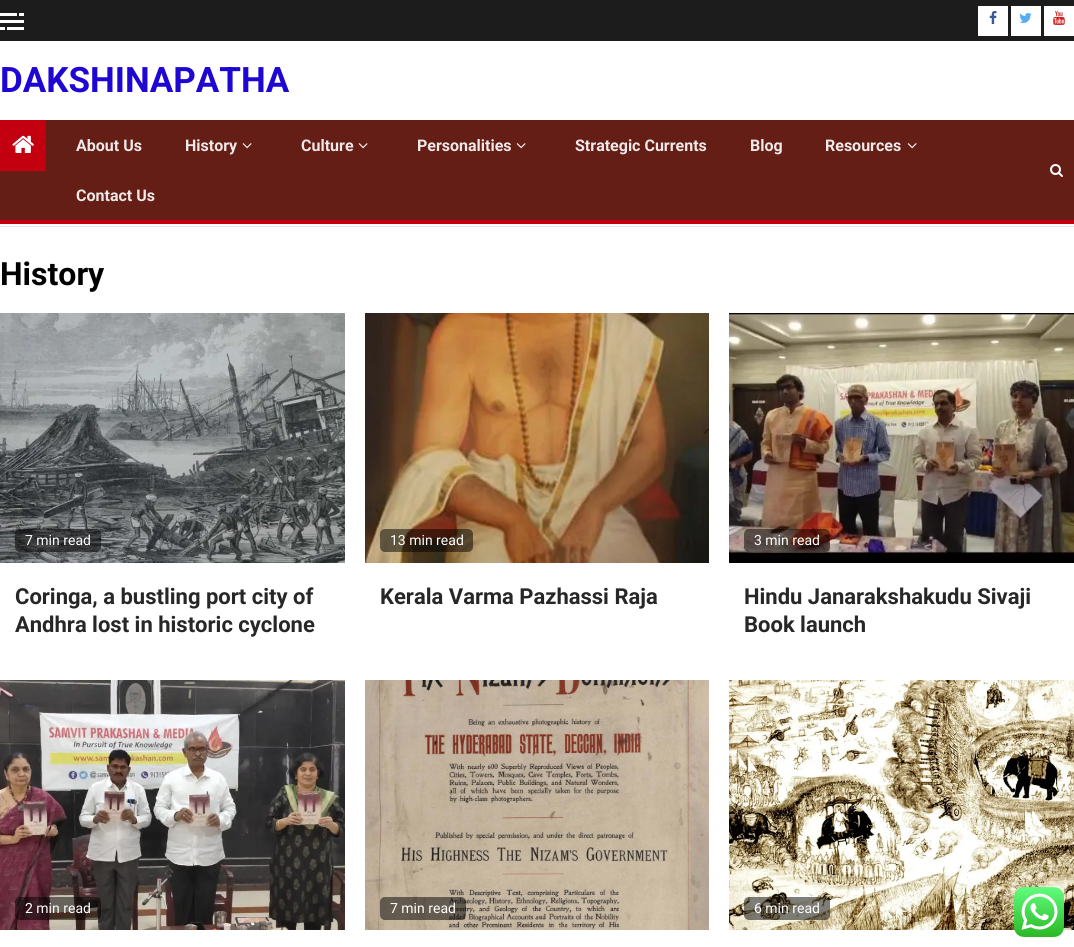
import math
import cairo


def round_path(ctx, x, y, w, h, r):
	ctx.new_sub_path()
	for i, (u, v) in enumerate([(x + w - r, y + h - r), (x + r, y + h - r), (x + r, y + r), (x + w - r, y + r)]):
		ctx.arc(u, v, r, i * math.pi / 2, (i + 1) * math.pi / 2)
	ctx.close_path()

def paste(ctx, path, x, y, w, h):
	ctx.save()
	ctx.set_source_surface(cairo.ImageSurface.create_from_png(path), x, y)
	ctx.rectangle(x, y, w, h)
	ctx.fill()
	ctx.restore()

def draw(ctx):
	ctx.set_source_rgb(1, 1, 1)
	ctx.paint()
	ctx.set_source_rgb(0.11, 0.11, 0.11)
	ctx.rectangle(0, 0, 1074, 41)
	ctx.fill()
	ctx.set_source_rgb(1, 1, 1)
	ctx.rectangle(19, 13, 5, 3)
	ctx.rectangle(0, 13, 17, 3)
	ctx.rectangle(0, 20, 24, 3)
	ctx.rectangle(7, 27, 17, 3)
	ctx.rectangle(0, 27, 5, 3)
	ctx.rectangle(978, 6, 30, 30)
	ctx.fill()
	paste(ctx, 'media/1.png', 989, 11, 8, 13)
	ctx.rectangle(1011, 6, 30, 30)
	ctx.fill()
	paste(ctx, 'media/2.png', 1019, 13, 13, 10)
	ctx.rectangle(1044, 6, 30, 30)
	ctx.fill()
	paste(ctx, 'media/3.png', 1053, 11, 12, 14)
	ctx.select_font_face('Roboto', cairo.FONT_SLANT_NORMAL, cairo.FONT_WEIGHT_BOLD)
	ctx.set_font_size(35)
	ctx.set_source_rgb(0.118, 0.024, 0.827)
	ctx.move_to(0, 92)
	ctx.show_text('DAKSHINAPATHA')
	ctx.set_source_rgb(0.392, 0.118, 0.086)
	ctx.rectangle(0, 120, 1074, 100)
	ctx.fill()
	ctx.set_source_rgb(0.765, 0, 0.063)
	ctx.rectangle(0, 220, 1074, 4)
	ctx.rectangle(0, 120, 46, 51)
	ctx.fill()
	paste(ctx, 'media/4.png', 12, 135, 22, 18)
	ctx.set_font_size(16)
	ctx.set_source_rgb(0.941, 0.914, 0.91)
	ctx.move_to(76, 151)
	ctx.show_text('About Us')
	ctx.move_to(185, 151)
	ctx.show_text('History')
	paste(ctx, 'media/5.png', 242, 143, 10, 6)
	ctx.move_to(301, 151)
	ctx.show_text('Culture')
	paste(ctx, 'media/5.png', 358, 143, 10, 6)
	ctx.move_to(417, 151)
	ctx.show_text('Personalities')
	paste(ctx, 'media/5.png', 516, 143, 10, 6)
	for x, y, s in [
		(575, 151, 'Strategic Currents'),
		(750, 151, 'Blog'),
		(825, 151, 'Resources'),
	]:
		ctx.move_to(x, y)
		ctx.show_text(s)
	paste(ctx, 'media/5.png', 907, 143, 10, 6)
	ctx.move_to(76, 201)
	ctx.show_text('Contact Us')
	paste(ctx, 'media/6.png', 1050, 164, 13, 13)
	ctx.set_source_rgb(0.902, 0.902, 0.902)
	ctx.rectangle(0, 226, 1074, 1)
	ctx.fill()
	ctx.set_font_size(32)
	ctx.set_source_rgb(0, 0, 0)
	ctx.move_to(0, 285)
	ctx.show_text('History')
	paste(ctx, 'media/7.png', 0, 313, 345, 250)
	ctx.set_source_rgba(0, 0, 0, 0.5)
	round_path(ctx, 15, 529, 86, 23, 5)
	ctx.fill()
	ctx.select_font_face('Roboto')
	ctx.set_font_size(14)
	ctx.set_source_rgb(1, 1, 1)
	ctx.move_to(25, 545)
	ctx.show_text('7 min read')
	ctx.select_font_face('Roboto', cairo.FONT_SLANT_NORMAL, cairo.FONT_WEIGHT_BOLD)
	ctx.set_font_size(22)
	ctx.set_source_rgb(0.153, 0.153, 0.153)
	ctx.move_to(15, 604)
	ctx.show_text('Coringa, a bustling port city of')
	ctx.move_to(15, 632)
	ctx.show_text('Andhra lost in historic cyclone')
	paste(ctx, 'media/8.png', 365, 313, 344, 250)
	ctx.set_source_rgba(0, 0, 0, 0.5)
	round_path(ctx, 380, 529, 93, 23, 5)
	ctx.fill()
	ctx.select_font_face('Roboto')
	ctx.set_font_size(14)
	ctx.set_source_rgb(1, 1, 1)
	ctx.move_to(390, 545)
	ctx.show_text('13 min read')
	ctx.select_font_face('Roboto', cairo.FONT_SLANT_NORMAL, cairo.FONT_WEIGHT_BOLD)
	ctx.set_font_size(22)
	ctx.set_source_rgb(0.153, 0.153, 0.153)
	ctx.move_to(380, 604)
	ctx.show_text('Kerala Varma Pazhassi Raja')
	paste(ctx, 'media/9.png', 729, 313, 345, 250)
	ctx.set_source_rgba(0, 0, 0, 0.5)
	round_path(ctx, 744, 529, 86, 23, 5)
	ctx.fill()
	ctx.select_font_face('Roboto')
	ctx.set_font_size(14)
	ctx.set_source_rgb(1, 1, 1)
	ctx.move_to(754, 545)
	ctx.show_text('3 min read')
	ctx.select_font_face('Roboto', cairo.FONT_SLANT_NORMAL, cairo.FONT_WEIGHT_BOLD)
	ctx.set_font_size(22)
	ctx.set_source_rgb(0.153, 0.153, 0.153)
	ctx.move_to(744, 604)
	ctx.show_text('Hindu Janarakshakudu Sivaji')
	ctx.move_to(744, 632)
	ctx.show_text('Book launch')
	paste(ctx, 'media/10.png', 0, 680, 345, 250)
	ctx.set_source_rgba(0, 0, 0, 0.5)
	round_path(ctx, 15, 897, 86, 23, 5)
	ctx.fill()
	ctx.select_font_face('Roboto')
	ctx.set_font_size(14)
	ctx.set_source_rgb(1, 1, 1)
	ctx.move_to(25, 913)
	ctx.show_text('2 min read')
	paste(ctx, 'media/11.png', 365, 680, 344, 250)
	ctx.set_source_rgba(0, 0, 0, 0.5)
	round_path(ctx, 380, 897, 86, 23, 5)
	ctx.fill()
	ctx.set_source_rgb(1, 1, 1)
	ctx.move_to(390, 913)
	ctx.show_text('7 min read')
	paste(ctx, 'media/12.png', 729, 680, 345, 250)
	ctx.set_source_rgba(0, 0, 0, 0.5)
	round_path(ctx, 744, 897, 86, 23, 5)
	ctx.fill()
	ctx.set_source_rgb(1, 1, 1)
	ctx.move_to(754, 913)
	ctx.show_text('6 min read')
	paste(ctx, 'media/13.png', 1014, 887, 50, 50)


surface = cairo.ImageSurface(cairo.FORMAT_RGB24, 1074, 947)
ctx = cairo.Context(surface)
options = cairo.FontOptions()
options.set_hint_metrics(cairo.HINT_METRICS_OFF)
options.set_hint_style(cairo.HINT_STYLE_NONE)
ctx.set_font_options(options)
ctx.set_miter_limit(4)
draw(ctx)
surface.write_to_png('image.png')
